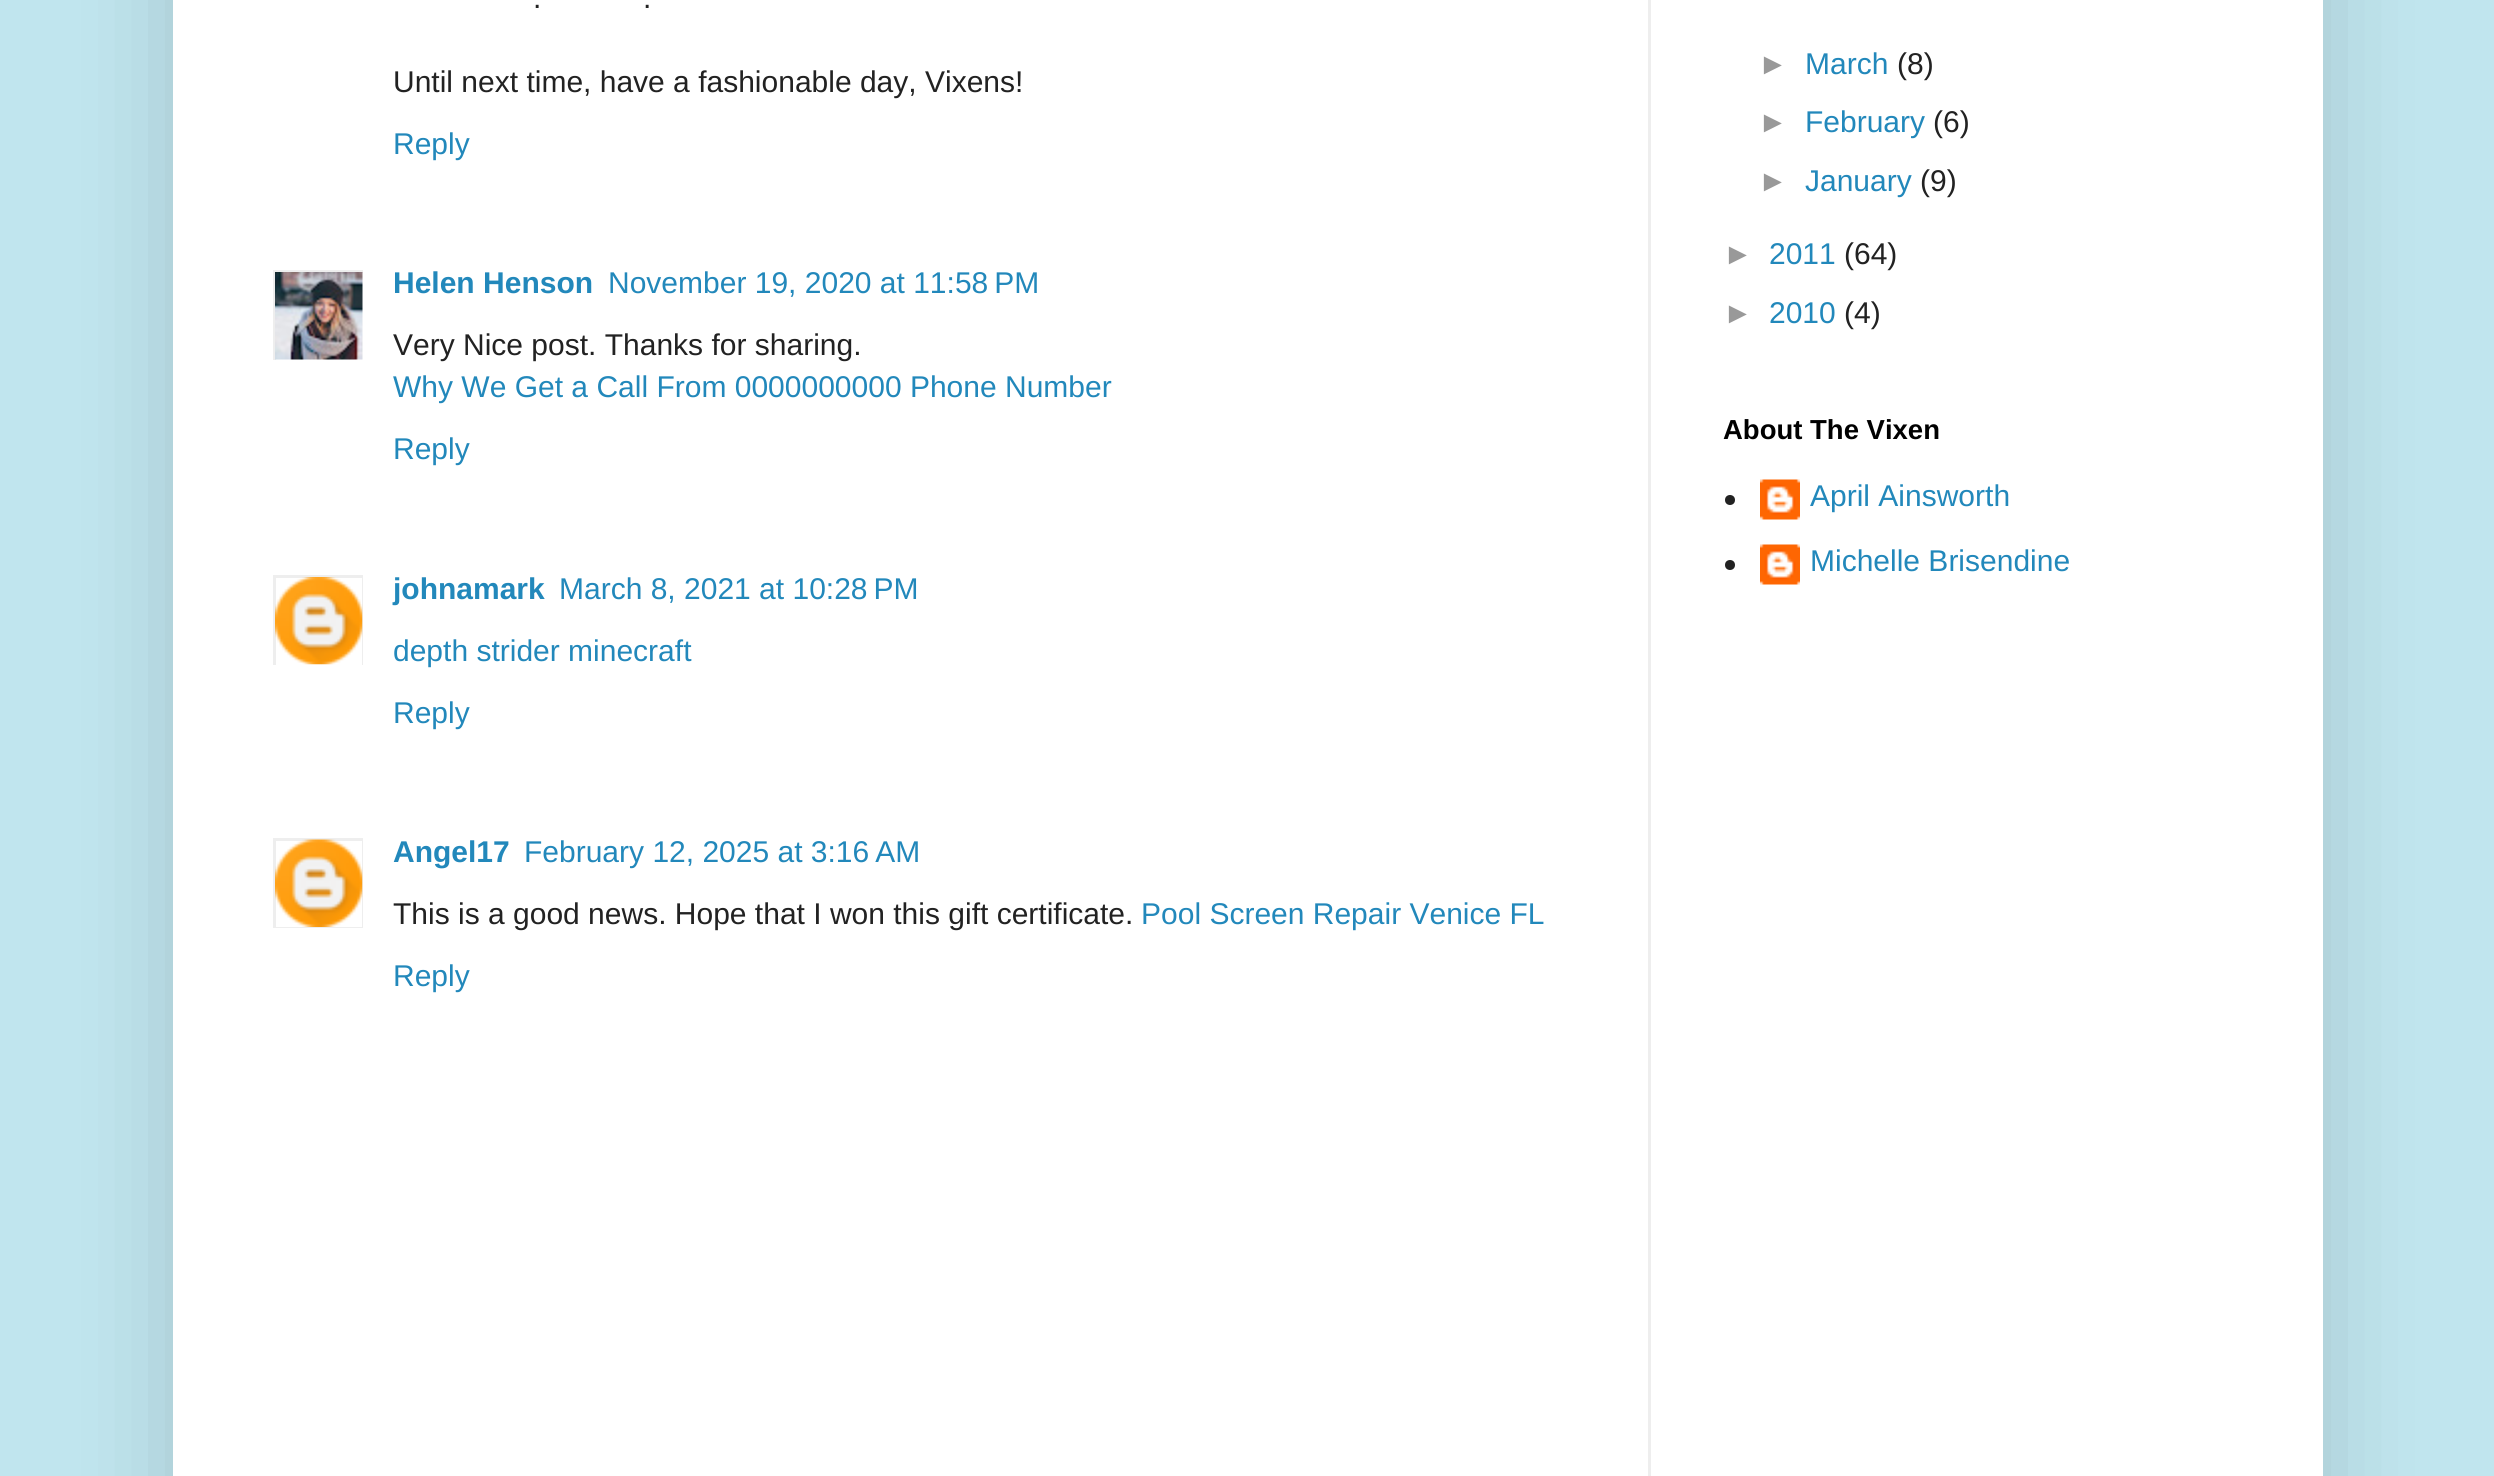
import math
import cairo


def round_path(ctx, x, y, w, h, r):
	ctx.new_sub_path()
	for i, (u, v) in enumerate([(x + w - r, y + h - r), (x + r, y + h - r), (x + r, y + r), (x + w - r, y + r)]):
		ctx.arc(u, v, r, i * math.pi / 2, (i + 1) * math.pi / 2)
	ctx.close_path()

def blur_box(ctx, x, y, w, h, r, blur, alpha):
	ctx.push_group_with_content(cairo.CONTENT_ALPHA)
	ctx.set_operator(cairo.OPERATOR_SOURCE)
	for i in range(15, -16, -2):
		e = blur * i / 6
		if min(w, h) + 2 * e > 0:
			ctx.set_source_rgba(0, 0, 0, alpha * math.erfc((i - 1) / 8.5) / 2)
			round_path(ctx, x - e, y - e, w + 2 * e, h + 2 * e, max(0, min(r + e + blur * .6, min(w, h) / 2 + e)))
			ctx.fill()
	ctx.mask(ctx.pop_group())

def paste(ctx, path, x, y, w, h):
	ctx.save()
	ctx.set_source_surface(cairo.ImageSurface.create_from_png(path), x, y)
	ctx.rectangle(x, y, w, h)
	ctx.fill()
	ctx.restore()

def draw(ctx):
	ctx.set_source_rgb(0.753, 0.898, 0.933)
	ctx.paint()
	ctx.set_source_rgb(0, 0, 0)
	blur_box(ctx, 173, -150, 2150, 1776, 0, 50, 0.15)
	ctx.set_source_rgb(1, 1, 1)
	ctx.rectangle(173, 0, 2150, 1476)
	ctx.fill()
	ctx.set_source_rgb(0.933, 0.933, 0.933)
	ctx.rectangle(1648, 0, 3, 1476)
	ctx.fill()
	ctx.select_font_face('Liberation Sans')
	ctx.set_font_size(30)
	ctx.set_source_rgb(0.133, 0.133, 0.133)
	for x, y, s in [
		(533, 8, '.'),
		(643, 8, '.'),
		(393, 92, 'Until next time, have a fashionable day, Vixens!'),
	]:
		ctx.move_to(x, y)
		ctx.show_text(s)
	ctx.set_source_rgb(0.133, 0.533, 0.733)
	ctx.move_to(393, 154)
	ctx.show_text('Reply')
	ctx.save()
	ctx.rectangle(273, 270, 90, 90)
	ctx.clip()
	ctx.rectangle(274.5, 271.5, 92, 92)
	ctx.set_source_rgb(0.933, 0.933, 0.933)
	ctx.set_line_width(3)
	ctx.stroke()
	ctx.restore()
	paste(ctx, 'media/1.png', 275, 272, 88, 88)
	ctx.select_font_face('Liberation Sans', cairo.FONT_SLANT_NORMAL, cairo.FONT_WEIGHT_BOLD)
	ctx.move_to(393, 293)
	ctx.show_text('Helen Henson')
	ctx.select_font_face('Liberation Sans')
	ctx.move_to(608, 293)
	ctx.show_text('November 19, 2020 at 11:58 PM')
	ctx.set_source_rgb(0.133, 0.133, 0.133)
	ctx.move_to(393, 355)
	ctx.show_text('Very Nice post. Thanks for sharing.')
	ctx.set_source_rgb(0.133, 0.533, 0.733)
	ctx.move_to(393, 397)
	ctx.show_text('Why We Get a Call From 0000000000 Phone Number')
	ctx.move_to(393, 459)
	ctx.show_text('Reply')
	ctx.save()
	ctx.rectangle(273, 575, 90, 90)
	ctx.clip()
	ctx.rectangle(274.5, 576.5, 89, 90)
	ctx.set_source_rgb(0.933, 0.933, 0.933)
	ctx.set_line_width(3)
	ctx.stroke()
	ctx.restore()
	paste(ctx, 'media/2.png', 275, 577, 88, 88)
	ctx.select_font_face('Liberation Sans', cairo.FONT_SLANT_NORMAL, cairo.FONT_WEIGHT_BOLD)
	ctx.move_to(393, 599)
	ctx.show_text('johnamark')
	ctx.select_font_face('Liberation Sans')
	for x, y, s in [
		(559, 599, 'March 8, 2021 at 10:28 PM'),
		(393, 661, 'depth strider minecraft'),
		(393, 723, 'Reply'),
	]:
		ctx.move_to(x, y)
		ctx.show_text(s)
	ctx.save()
	ctx.rectangle(273, 838, 90, 90)
	ctx.clip()
	ctx.rectangle(274.5, 839.5, 89, 89)
	ctx.set_source_rgb(0.933, 0.933, 0.933)
	ctx.set_line_width(3)
	ctx.stroke()
	ctx.restore()
	paste(ctx, 'media/3.png', 275, 839, 88, 88)
	ctx.select_font_face('Liberation Sans', cairo.FONT_SLANT_NORMAL, cairo.FONT_WEIGHT_BOLD)
	ctx.move_to(393, 862)
	ctx.show_text('Angel17')
	ctx.select_font_face('Liberation Sans')
	ctx.move_to(524, 862)
	ctx.show_text('February 12, 2025 at 3:16 AM')
	ctx.set_source_rgb(0.133, 0.133, 0.133)
	ctx.move_to(393, 924)
	ctx.show_text('This is a good news. Hope that I won this gift certificate.')
	ctx.set_source_rgb(0.133, 0.533, 0.733)
	ctx.move_to(1141, 924)
	ctx.show_text('Pool Screen Repair Venice FL')
	ctx.move_to(393, 986)
	ctx.show_text('Reply')
	ctx.set_source_rgb(0.6, 0.6, 0.6)
	ctx.move_to(1758, 74)
	ctx.show_text('►')
	ctx.set_source_rgb(0.133, 0.533, 0.733)
	ctx.move_to(1805, 74)
	ctx.show_text('March')
	ctx.set_source_rgb(0.133, 0.133, 0.133)
	ctx.move_to(1897, 74)
	ctx.show_text('(8)')
	ctx.set_source_rgb(0.6, 0.6, 0.6)
	ctx.move_to(1758, 132)
	ctx.show_text('►')
	ctx.set_source_rgb(0.133, 0.533, 0.733)
	ctx.move_to(1805, 132)
	ctx.show_text('February')
	ctx.set_source_rgb(0.133, 0.133, 0.133)
	ctx.move_to(1933, 132)
	ctx.show_text('(6)')
	ctx.set_source_rgb(0.6, 0.6, 0.6)
	ctx.move_to(1758, 191)
	ctx.show_text('►')
	ctx.set_source_rgb(0.133, 0.533, 0.733)
	ctx.move_to(1805, 191)
	ctx.show_text('January')
	ctx.set_source_rgb(0.133, 0.133, 0.133)
	ctx.move_to(1920, 191)
	ctx.show_text('(9)')
	ctx.set_source_rgb(0.6, 0.6, 0.6)
	ctx.move_to(1723, 264)
	ctx.show_text('►')
	ctx.set_source_rgb(0.133, 0.533, 0.733)
	ctx.move_to(1769, 264)
	ctx.show_text('2011')
	ctx.set_source_rgb(0.133, 0.133, 0.133)
	ctx.move_to(1844, 264)
	ctx.show_text('(64)')
	ctx.set_source_rgb(0.6, 0.6, 0.6)
	ctx.move_to(1723, 323)
	ctx.show_text('►')
	ctx.set_source_rgb(0.133, 0.533, 0.733)
	ctx.move_to(1769, 323)
	ctx.show_text('2010')
	ctx.set_source_rgb(0.133, 0.133, 0.133)
	ctx.move_to(1844, 323)
	ctx.show_text('(4)')
	ctx.select_font_face('Liberation Sans', cairo.FONT_SLANT_NORMAL, cairo.FONT_WEIGHT_BOLD)
	ctx.set_font_size(27.5)
	ctx.set_source_rgb(0, 0, 0)
	ctx.move_to(1723, 439)
	ctx.show_text('About The Vixen')
	ctx.set_source_rgb(0.133, 0.133, 0.133)
	ctx.new_path()
	ctx.arc(1730, 500, 5, 0, 2 * math.pi)
	ctx.fill()
	paste(ctx, 'media/4.png', 1760, 479, 40, 41)
	ctx.select_font_face('Liberation Sans')
	ctx.set_font_size(30)
	ctx.set_source_rgb(0.133, 0.533, 0.733)
	ctx.move_to(1810, 506)
	ctx.show_text('April Ainsworth')
	ctx.set_source_rgb(0.133, 0.133, 0.133)
	ctx.new_path()
	ctx.arc(1730, 565, 5, 0, 2 * math.pi)
	ctx.fill()
	paste(ctx, 'media/4.png', 1760, 544, 40, 41)
	ctx.set_source_rgb(0.133, 0.533, 0.733)
	ctx.move_to(1810, 571)
	ctx.show_text('Michelle Brisendine')


surface = cairo.ImageSurface(cairo.FORMAT_RGB24, 2494, 1476)
ctx = cairo.Context(surface)
options = cairo.FontOptions()
options.set_hint_metrics(cairo.HINT_METRICS_OFF)
options.set_hint_style(cairo.HINT_STYLE_NONE)
ctx.set_font_options(options)
ctx.set_miter_limit(4)
draw(ctx)
surface.write_to_png('image.png')
